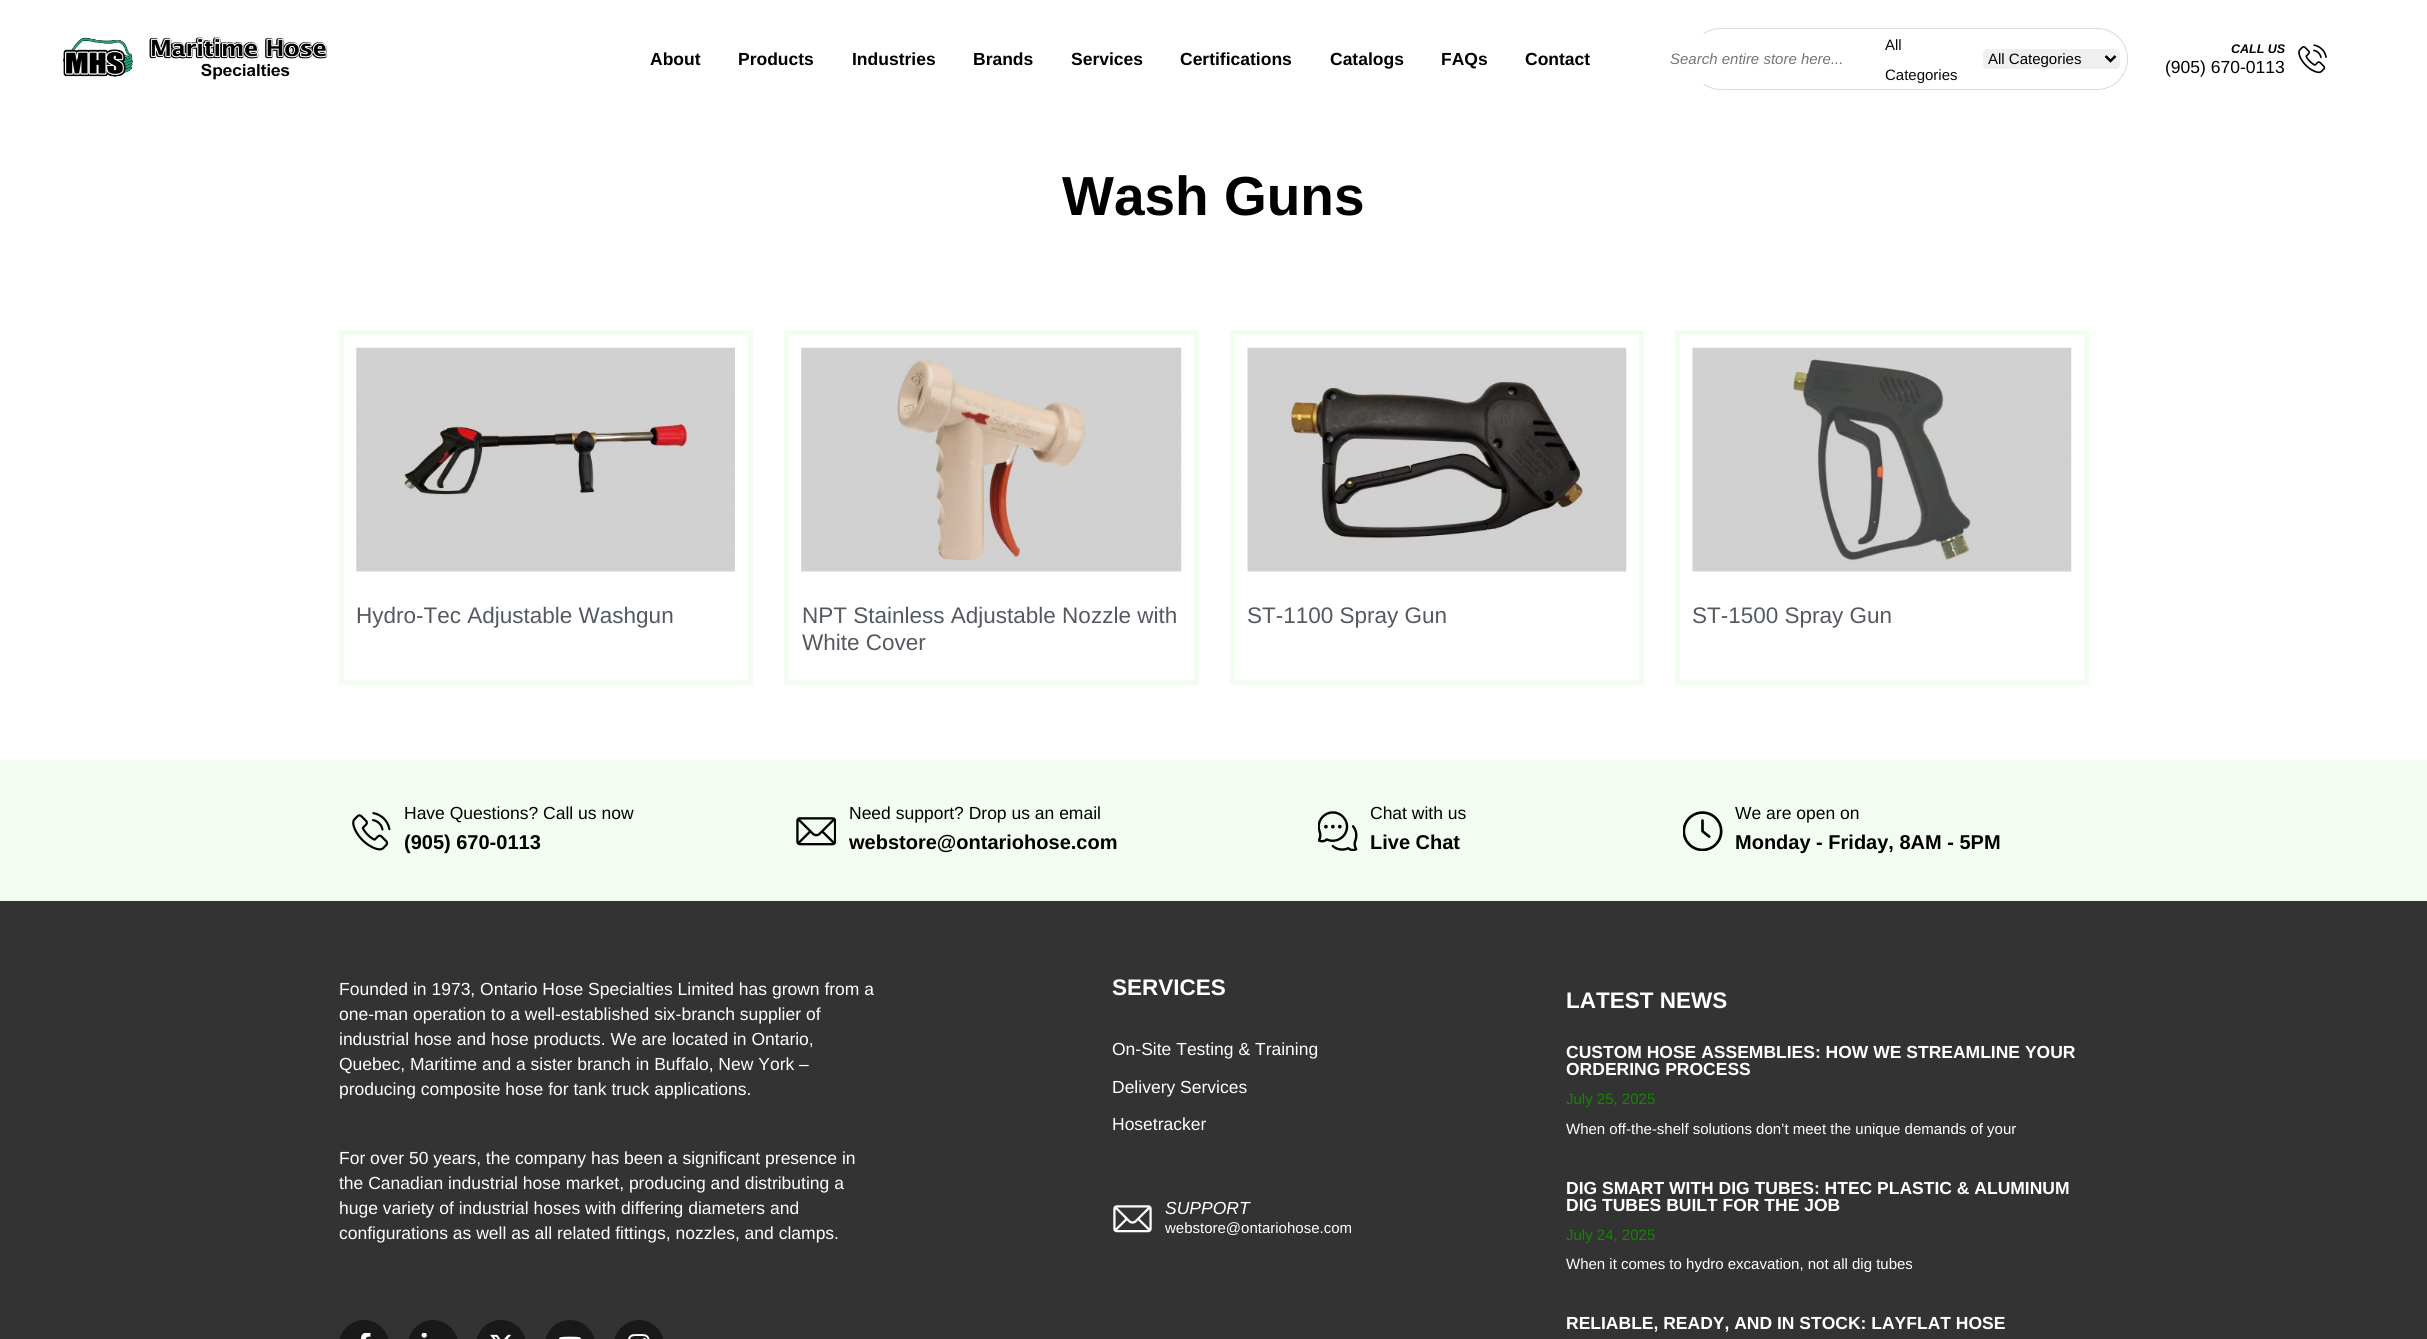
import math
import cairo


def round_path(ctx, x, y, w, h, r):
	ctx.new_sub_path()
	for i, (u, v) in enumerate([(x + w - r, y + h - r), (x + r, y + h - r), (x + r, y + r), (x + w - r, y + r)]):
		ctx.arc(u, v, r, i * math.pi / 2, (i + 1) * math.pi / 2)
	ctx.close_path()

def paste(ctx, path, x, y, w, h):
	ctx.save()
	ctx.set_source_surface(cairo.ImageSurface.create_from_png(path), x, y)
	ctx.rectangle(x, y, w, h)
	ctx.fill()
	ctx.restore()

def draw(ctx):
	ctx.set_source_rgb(1, 1, 1)
	ctx.paint()
	paste(ctx, 'media/1.png', 63, 37, 265, 43)
	ctx.select_font_face('Liberation Sans', cairo.FONT_SLANT_NORMAL, cairo.FONT_WEIGHT_BOLD)
	ctx.set_font_size(17.5)
	ctx.set_source_rgb(0, 0, 0)
	for x, y, s in [
		(650, 65, 'About'),
		(738, 65, 'Products'),
		(852, 65, 'Industries'),
		(973, 65, 'Brands'),
		(1071, 65, 'Services'),
		(1180, 65, 'Certifications'),
		(1330, 65, 'Catalogs'),
		(1441, 65, 'FAQs'),
		(1525, 65, 'Contact'),
	]:
		ctx.move_to(x, y)
		ctx.show_text(s)
	round_path(ctx, 1690.5, 28.5, 437, 61, 30.5)
	ctx.set_source_rgb(0.851, 0.851, 0.851)
	ctx.set_line_width(1)
	ctx.stroke()
	ctx.set_source_rgb(1, 1, 1)
	round_path(ctx, 1663, 34, 222, 50, 4)
	ctx.fill()
	ctx.select_font_face('Liberation Sans', cairo.FONT_SLANT_ITALIC)
	ctx.set_font_size(15)
	ctx.set_source_rgb(0.459, 0.459, 0.459)
	ctx.move_to(1670, 64)
	ctx.show_text('Search entire store here...')
	ctx.select_font_face('Liberation Sans')
	ctx.set_source_rgb(0.039, 0.039, 0.039)
	ctx.move_to(1885, 50)
	ctx.show_text('All')
	ctx.move_to(1885, 80)
	ctx.show_text('Categories')
	ctx.set_source_rgb(0.937, 0.937, 0.937)
	round_path(ctx, 1983, 49, 137, 20, 4)
	ctx.fill()
	ctx.new_path()
	ctx.move_to(2105.5, 56)
	ctx.line_to(2110.5, 61)
	ctx.line_to(2115.5, 56)
	ctx.set_source_rgb(0, 0, 0)
	ctx.set_line_width(2.5)
	ctx.stroke()
	ctx.move_to(1988, 64)
	ctx.show_text('All Categories')
	ctx.select_font_face('Liberation Sans', cairo.FONT_SLANT_ITALIC, cairo.FONT_WEIGHT_BOLD)
	ctx.set_font_size(12.5)
	ctx.move_to(2231, 53)
	ctx.show_text('CALL US')
	ctx.select_font_face('Liberation Sans')
	ctx.set_font_size(17.5)
	ctx.move_to(2165, 73)
	ctx.show_text('(905) 670-0113')
	paste(ctx, 'media/2.png', 2298, 44, 29, 30)
	ctx.select_font_face('Liberation Sans', cairo.FONT_SLANT_NORMAL, cairo.FONT_WEIGHT_BOLD)
	ctx.set_font_size(55)
	ctx.move_to(1062, 215)
	ctx.show_text('Wash Guns')
	ctx.rectangle(341.5, 332.5, 409, 350)
	ctx.set_source_rgb(0.953, 0.988, 0.945)
	ctx.set_line_width(5)
	ctx.stroke()
	paste(ctx, 'media/3.png', 356, 347, 379, 225)
	ctx.select_font_face('Liberation Sans')
	ctx.set_font_size(22.5)
	ctx.set_source_rgb(0.329, 0.349, 0.373)
	ctx.move_to(356, 623)
	ctx.show_text('Hydro-Tec Adjustable Washgun')
	ctx.rectangle(786.5, 332.5, 410, 350)
	ctx.set_source_rgb(0.953, 0.988, 0.945)
	ctx.stroke()
	paste(ctx, 'media/4.png', 801, 347, 381, 225)
	ctx.set_source_rgb(0.329, 0.349, 0.373)
	ctx.move_to(802, 623)
	ctx.show_text('NPT Stainless Adjustable Nozzle with')
	ctx.move_to(802, 650)
	ctx.show_text('White Cover')
	ctx.rectangle(1232.5, 332.5, 409, 350)
	ctx.set_source_rgb(0.953, 0.988, 0.945)
	ctx.stroke()
	paste(ctx, 'media/5.png', 1247, 347, 380, 225)
	ctx.set_source_rgb(0.329, 0.349, 0.373)
	ctx.move_to(1247, 623)
	ctx.show_text('ST-1100 Spray Gun')
	ctx.rectangle(1677.5, 332.5, 409, 350)
	ctx.set_source_rgb(0.953, 0.988, 0.945)
	ctx.stroke()
	paste(ctx, 'media/6.png', 1692, 347, 380, 225)
	ctx.set_source_rgb(0.329, 0.349, 0.373)
	ctx.move_to(1692, 623)
	ctx.show_text('ST-1500 Spray Gun')
	ctx.set_source_rgb(0.953, 0.988, 0.945)
	ctx.rectangle(0, 760, 2427, 141)
	ctx.fill()
	paste(ctx, 'media/7.png', 352, 812, 39, 39)
	ctx.set_font_size(17.5)
	ctx.set_source_rgb(0, 0, 0)
	ctx.move_to(404, 819)
	ctx.show_text('Have Questions? Call us now')
	ctx.select_font_face('Liberation Sans', cairo.FONT_SLANT_NORMAL, cairo.FONT_WEIGHT_BOLD)
	ctx.set_font_size(20)
	ctx.move_to(404, 849)
	ctx.show_text('(905) 670-0113')
	paste(ctx, 'media/8.png', 796, 817, 40, 29)
	ctx.select_font_face('Liberation Sans')
	ctx.set_font_size(17.5)
	ctx.move_to(849, 819)
	ctx.show_text('Need support? Drop us an email')
	ctx.select_font_face('Liberation Sans', cairo.FONT_SLANT_NORMAL, cairo.FONT_WEIGHT_BOLD)
	ctx.set_font_size(20)
	ctx.move_to(849, 849)
	ctx.show_text('webstore@ontariohose.com')
	paste(ctx, 'media/9.png', 1318, 811, 40, 40)
	ctx.select_font_face('Liberation Sans')
	ctx.set_font_size(17.5)
	ctx.move_to(1370, 819)
	ctx.show_text('Chat with us')
	ctx.select_font_face('Liberation Sans', cairo.FONT_SLANT_NORMAL, cairo.FONT_WEIGHT_BOLD)
	ctx.set_font_size(20)
	ctx.move_to(1370, 849)
	ctx.show_text('Live Chat')
	paste(ctx, 'media/10.png', 1683, 811, 40, 40)
	ctx.select_font_face('Liberation Sans')
	ctx.set_font_size(17.5)
	ctx.move_to(1735, 819)
	ctx.show_text('We are open on')
	ctx.select_font_face('Liberation Sans', cairo.FONT_SLANT_NORMAL, cairo.FONT_WEIGHT_BOLD)
	ctx.set_font_size(20)
	ctx.move_to(1735, 849)
	ctx.show_text('Monday - Friday, 8AM - 5PM')
	ctx.set_source_rgb(0.2, 0.2, 0.2)
	ctx.rectangle(0, 901, 2427, 438)
	ctx.fill()
	ctx.select_font_face('Liberation Sans')
	ctx.set_font_size(17.5)
	ctx.set_source_rgb(1, 1, 1)
	for x, y, s in [
		(339, 995, 'Founded in 1973, Ontario Hose Specialties Limited has grown from a'),
		(339, 1020, 'one-man operation to a well-established six-branch supplier of'),
		(339, 1045, 'industrial hose and hose products. We are located in Ontario,'),
		(339, 1070, 'Quebec, Maritime and a sister branch in Buffalo, New York –'),
		(339, 1095, 'producing composite hose for tank truck applications.'),
		(339, 1164, 'For over 50 years, the company has been a significant presence in'),
		(339, 1189, 'the Canadian industrial hose market, producing and distributing a'),
		(339, 1214, 'huge variety of industrial hoses with differing diameters and'),
		(339, 1239, 'configurations as well as all related fittings, nozzles, and clamps.'),
	]:
		ctx.move_to(x, y)
		ctx.show_text(s)
	ctx.set_source_rgb(0.098, 0.098, 0.098)
	round_path(ctx, 339, 1320, 50, 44, 25)
	ctx.fill()
	paste(ctx, 'media/11.png', 361, 1333, 10, 6)
	round_path(ctx, 408, 1320, 50, 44, 25)
	ctx.fill()
	paste(ctx, 'media/12.png', 421, 1333, 6, 5)
	round_path(ctx, 476, 1320, 50, 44, 25)
	ctx.fill()
	paste(ctx, 'media/13.png', 490, 1334, 21, 5)
	round_path(ctx, 545, 1320, 50, 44, 25)
	ctx.fill()
	paste(ctx, 'media/14.png', 558, 1336, 24, 3)
	round_path(ctx, 614, 1320, 50, 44, 25)
	ctx.fill()
	paste(ctx, 'media/15.png', 628, 1334, 22, 5)
	ctx.select_font_face('Liberation Sans', cairo.FONT_SLANT_NORMAL, cairo.FONT_WEIGHT_BOLD)
	ctx.set_font_size(22.5)
	ctx.set_source_rgb(1, 1, 1)
	ctx.move_to(1112, 995)
	ctx.show_text('SERVICES')
	ctx.select_font_face('Liberation Sans')
	ctx.set_font_size(17.5)
	for x, y, s in [
		(1112, 1055, 'On-Site Testing & Training'),
		(1112, 1093, 'Delivery Services'),
		(1112, 1130, 'Hosetracker'),
	]:
		ctx.move_to(x, y)
		ctx.show_text(s)
	paste(ctx, 'media/16.png', 1113, 1205, 39, 28)
	ctx.select_font_face('Liberation Sans', cairo.FONT_SLANT_ITALIC)
	ctx.move_to(1165, 1214)
	ctx.show_text('SUPPORT')
	ctx.select_font_face('Liberation Sans')
	ctx.set_font_size(15)
	ctx.move_to(1165, 1233)
	ctx.show_text('webstore@ontariohose.com')
	ctx.select_font_face('Liberation Sans', cairo.FONT_SLANT_NORMAL, cairo.FONT_WEIGHT_BOLD)
	ctx.set_font_size(22.5)
	ctx.move_to(1566, 1008)
	ctx.show_text('LATEST NEWS')
	ctx.set_font_size(17.5)
	ctx.move_to(1566, 1058)
	ctx.show_text('CUSTOM HOSE ASSEMBLIES: HOW WE STREAMLINE YOUR')
	ctx.move_to(1566, 1075)
	ctx.show_text('ORDERING PROCESS')
	ctx.select_font_face('Liberation Sans')
	ctx.set_font_size(15)
	ctx.set_source_rgb(0.075, 0.525, 0)
	ctx.move_to(1566, 1104)
	ctx.show_text('July 25, 2025')
	ctx.set_source_rgb(1, 1, 1)
	ctx.move_to(1566, 1134)
	ctx.show_text('When off-the-shelf solutions don’t meet the unique demands of your')
	ctx.select_font_face('Liberation Sans', cairo.FONT_SLANT_NORMAL, cairo.FONT_WEIGHT_BOLD)
	ctx.set_font_size(17.5)
	ctx.move_to(1566, 1194)
	ctx.show_text('DIG SMART WITH DIG TUBES: HTEC PLASTIC & ALUMINUM')
	ctx.move_to(1566, 1211)
	ctx.show_text('DIG TUBES BUILT FOR THE JOB')
	ctx.select_font_face('Liberation Sans')
	ctx.set_font_size(15)
	ctx.set_source_rgb(0.075, 0.525, 0)
	ctx.move_to(1566, 1240)
	ctx.show_text('July 24, 2025')
	ctx.set_source_rgb(1, 1, 1)
	ctx.move_to(1566, 1269)
	ctx.show_text('When it comes to hydro excavation, not all dig tubes')
	ctx.select_font_face('Liberation Sans', cairo.FONT_SLANT_NORMAL, cairo.FONT_WEIGHT_BOLD)
	ctx.set_font_size(17.5)
	ctx.move_to(1566, 1329)
	ctx.show_text('RELIABLE, READY, AND IN STOCK: LAYFLAT HOSE')


surface = cairo.ImageSurface(cairo.FORMAT_RGB24, 2427, 1339)
ctx = cairo.Context(surface)
options = cairo.FontOptions()
options.set_hint_metrics(cairo.HINT_METRICS_OFF)
options.set_hint_style(cairo.HINT_STYLE_NONE)
ctx.set_font_options(options)
ctx.set_miter_limit(4)
draw(ctx)
surface.write_to_png('image.png')
